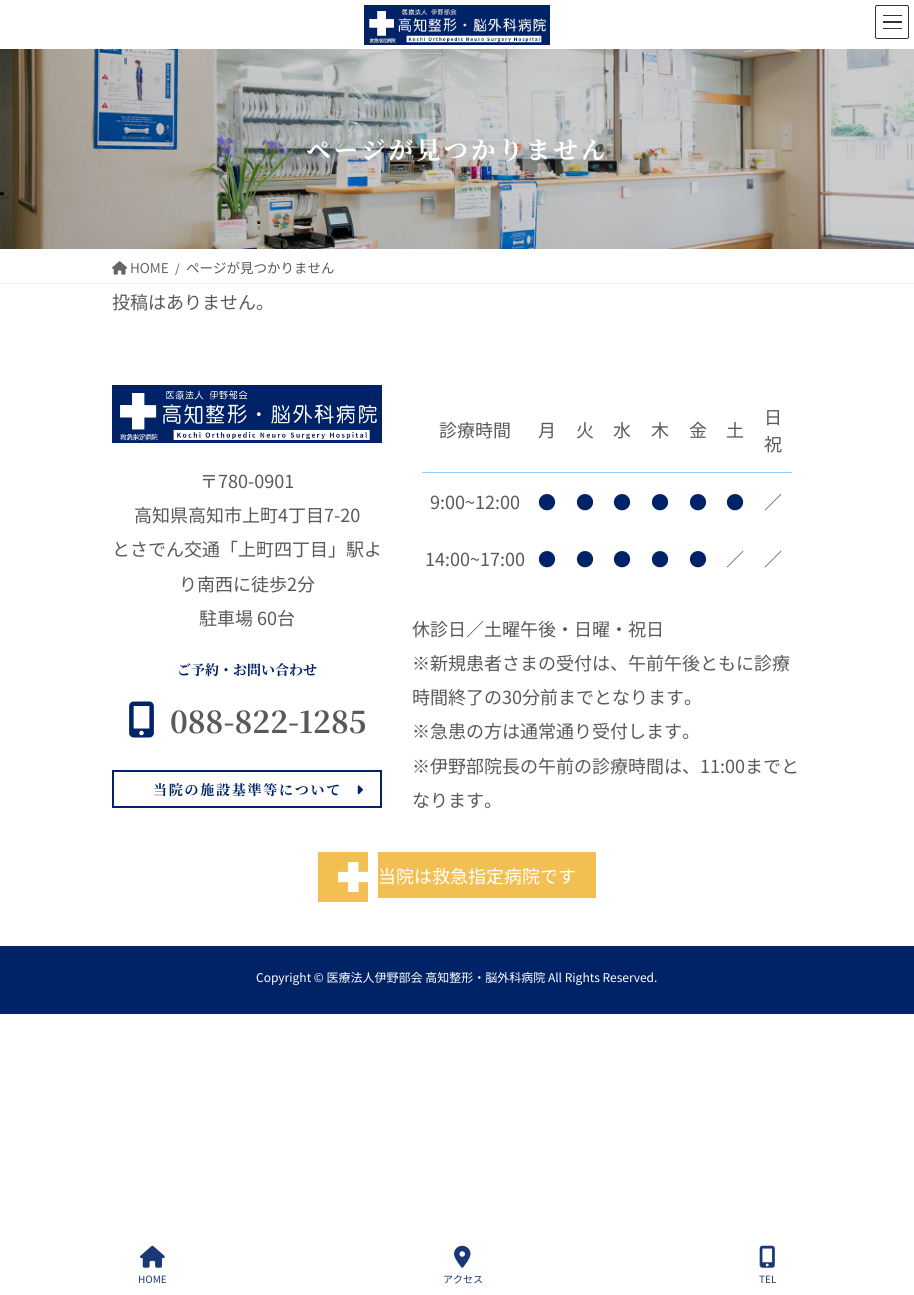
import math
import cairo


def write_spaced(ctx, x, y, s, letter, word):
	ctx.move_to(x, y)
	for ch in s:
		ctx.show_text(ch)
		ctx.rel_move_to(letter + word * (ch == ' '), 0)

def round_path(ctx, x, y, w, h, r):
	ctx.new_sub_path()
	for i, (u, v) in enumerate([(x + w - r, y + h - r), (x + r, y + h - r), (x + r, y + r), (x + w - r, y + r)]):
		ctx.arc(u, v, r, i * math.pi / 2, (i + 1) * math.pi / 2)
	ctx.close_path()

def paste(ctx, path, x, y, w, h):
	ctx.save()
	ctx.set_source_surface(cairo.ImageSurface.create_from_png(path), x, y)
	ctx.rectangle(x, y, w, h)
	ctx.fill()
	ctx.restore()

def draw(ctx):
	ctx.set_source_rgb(1, 1, 1)
	ctx.paint()
	paste(ctx, 'media/1.png', 364, 5, 186, 40)
	ctx.set_source_rgb(0.2, 0.2, 0.2)
	ctx.rectangle(883, 15, 19, 1)
	ctx.rectangle(883, 21, 19, 2)
	ctx.rectangle(883, 28, 19, 1)
	ctx.fill()
	round_path(ctx, 875.5, 5.5, 33, 33, 1.5)
	ctx.set_line_width(1)
	ctx.stroke()
	paste(ctx, 'media/2.png', 0, 49, 914, 200)
	ctx.select_font_face('Noto Serif JP', cairo.FONT_SLANT_NORMAL, cairo.FONT_WEIGHT_BOLD)
	ctx.set_font_size(24.5)
	ctx.set_source_rgb(1, 1, 1)
	write_spaced(ctx, 306, 159, 'ページが見つかりません', 3, 0)
	ctx.set_source_rgb(0.949, 0.949, 0.949)
	ctx.rectangle(0, 283, 914, 1)
	ctx.fill()
	paste(ctx, 'media/3.png', 112, 261, 16, 14)
	ctx.select_font_face('Noto Sans JP')
	ctx.set_font_size(13.5)
	ctx.set_source_rgb(0.4, 0.4, 0.4)
	ctx.move_to(130, 273)
	ctx.show_text('HOME')
	ctx.set_font_size(12)
	ctx.set_source_rgb(0.349, 0.349, 0.349)
	ctx.move_to(175, 273)
	ctx.show_text('/')
	ctx.set_font_size(13.5)
	ctx.move_to(186, 273)
	ctx.show_text('ページが見つかりません')
	ctx.set_font_size(18)
	ctx.move_to(112, 309)
	ctx.show_text('投稿はありません。')
	paste(ctx, 'media/4.png', 112, 385, 270, 58)
	for x, y, s in [
		(200, 488, '〒780-0901'),
		(134, 522, '高知県高知市上町4丁目7-20'),
		(112, 556, 'とさでん交通「上町四丁目」駅よ'),
		(179, 591, 'り南西に徒歩2分'),
		(199, 625, '駐車場 60台'),
	]:
		ctx.move_to(x, y)
		ctx.show_text(s)
	ctx.select_font_face('Noto Serif JP', cairo.FONT_SLANT_NORMAL, cairo.FONT_WEIGHT_BOLD)
	ctx.set_font_size(14)
	ctx.set_source_rgb(0, 0.133, 0.4)
	ctx.move_to(177, 675)
	ctx.show_text('ご予約・お問い合わせ')
	paste(ctx, 'media/5.png', 129, 701, 25, 37)
	ctx.set_font_size(30)
	ctx.set_source_rgb(0.349, 0.349, 0.349)
	ctx.move_to(170, 733)
	ctx.show_text('088-822-1285')
	ctx.rectangle(113, 771, 268, 36)
	ctx.set_source_rgb(0, 0.133, 0.4)
	ctx.set_line_width(2)
	ctx.stroke()
	ctx.set_font_size(14)
	write_spaced(ctx, 153, 795, '当院の施設基準等について', 1.75, 0)
	paste(ctx, 'media/6.png', 357, 785, 6, 10)
	ctx.select_font_face('Noto Sans JP')
	ctx.set_font_size(18)
	ctx.set_source_rgb(0.349, 0.349, 0.349)
	for x, y, s in [
		(439, 437, '診療時間'),
		(538, 437, '月'),
		(576, 437, '火'),
		(613, 437, '水'),
		(651, 437, '木'),
		(689, 437, '金'),
		(726, 437, '土'),
	]:
		ctx.move_to(x, y)
		ctx.show_text(s)
	ctx.set_source_rgb(0.549, 0.824, 0.961)
	ctx.rectangle(422, 472, 370, 1)
	ctx.fill()
	ctx.set_source_rgb(0.349, 0.349, 0.349)
	for x, y, s in [
		(764, 424, '日'),
		(764, 451, '祝'),
		(430, 509, '9:00~12:00'),
	]:
		ctx.move_to(x, y)
		ctx.show_text(s)
	ctx.set_source_rgb(0, 0.133, 0.4)
	for x, y, s in [
		(538, 509, '●'),
		(576, 509, '●'),
		(613, 509, '●'),
		(651, 509, '●'),
		(689, 509, '●'),
		(726, 509, '●'),
	]:
		ctx.move_to(x, y)
		ctx.show_text(s)
	ctx.set_source_rgb(0.349, 0.349, 0.349)
	ctx.move_to(764, 509)
	ctx.show_text('／')
	ctx.move_to(425, 566)
	ctx.show_text('14:00~17:00')
	ctx.set_source_rgb(0, 0.133, 0.4)
	for x, y, s in [
		(538, 566, '●'),
		(576, 566, '●'),
		(613, 566, '●'),
		(651, 566, '●'),
		(689, 566, '●'),
	]:
		ctx.move_to(x, y)
		ctx.show_text(s)
	ctx.set_source_rgb(0.349, 0.349, 0.349)
	for x, y, s in [
		(726, 566, '／'),
		(764, 566, '／'),
		(412, 636, '休診日／土曜午後・日曜・祝日'),
		(412, 670, '※新規患者さまの受付は、午前午後ともに診療'),
		(412, 704, '時間終了の30分前までとなります。'),
		(412, 738, '※急患の方は通常通り受付します。'),
		(412, 773, '※伊野部院長の午前の診療時間は、11:00までと'),
		(412, 807, 'なります。'),
	]:
		ctx.move_to(x, y)
		ctx.show_text(s)
	ctx.set_source_rgb(0.949, 0.749, 0.322)
	ctx.rectangle(318, 852, 50, 50)
	ctx.fill()
	paste(ctx, 'media/7.png', 338, 862, 30, 30)
	ctx.rectangle(378, 852, 218, 46)
	ctx.fill()
	ctx.set_source_rgb(1, 1, 1)
	ctx.move_to(378, 883)
	ctx.show_text('当院は救急指定病院です')
	ctx.set_source_rgb(0, 0.133, 0.4)
	ctx.rectangle(0, 946, 914, 68)
	ctx.fill()
	ctx.set_font_size(12)
	ctx.set_source_rgb(1, 1, 1)
	ctx.move_to(256, 982)
	ctx.show_text('Copyright © 医療法人伊野部会 高知整形・脳外科病院 All Rights Reserved.')
	paste(ctx, 'media/8.png', 140, 1245, 25, 23)
	ctx.set_font_size(10)
	ctx.set_source_rgb(0.102, 0.22, 0.459)
	ctx.move_to(138, 1283)
	ctx.show_text('HOME')
	paste(ctx, 'media/9.png', 454, 1245, 17, 23)
	ctx.move_to(443, 1283)
	ctx.show_text('アクセス')
	paste(ctx, 'media/10.png', 759, 1245, 16, 23)
	ctx.move_to(759, 1283)
	ctx.show_text('TEL')


surface = cairo.ImageSurface(cairo.FORMAT_RGB24, 914, 1295)
ctx = cairo.Context(surface)
options = cairo.FontOptions()
options.set_hint_metrics(cairo.HINT_METRICS_OFF)
options.set_hint_style(cairo.HINT_STYLE_NONE)
ctx.set_font_options(options)
ctx.set_miter_limit(4)
draw(ctx)
surface.write_to_png('image.png')
